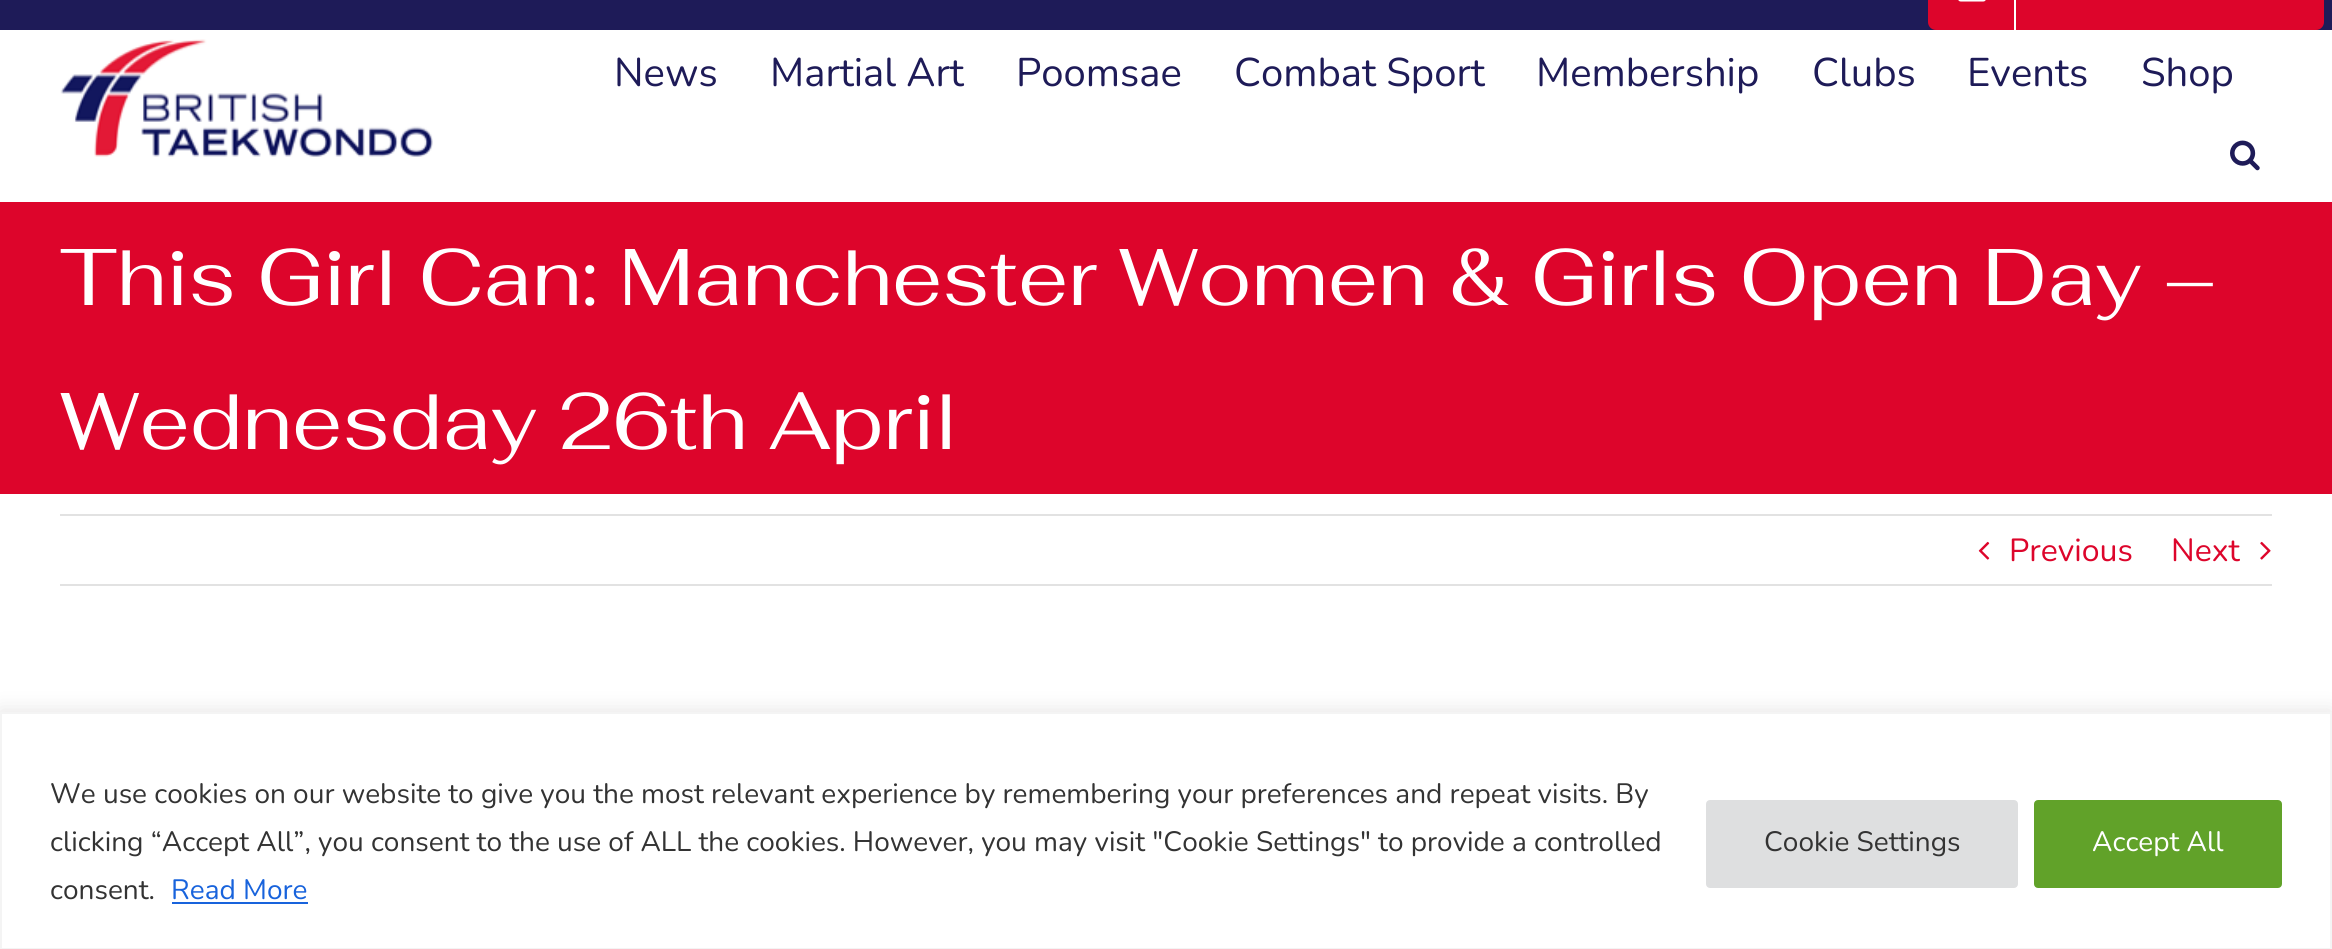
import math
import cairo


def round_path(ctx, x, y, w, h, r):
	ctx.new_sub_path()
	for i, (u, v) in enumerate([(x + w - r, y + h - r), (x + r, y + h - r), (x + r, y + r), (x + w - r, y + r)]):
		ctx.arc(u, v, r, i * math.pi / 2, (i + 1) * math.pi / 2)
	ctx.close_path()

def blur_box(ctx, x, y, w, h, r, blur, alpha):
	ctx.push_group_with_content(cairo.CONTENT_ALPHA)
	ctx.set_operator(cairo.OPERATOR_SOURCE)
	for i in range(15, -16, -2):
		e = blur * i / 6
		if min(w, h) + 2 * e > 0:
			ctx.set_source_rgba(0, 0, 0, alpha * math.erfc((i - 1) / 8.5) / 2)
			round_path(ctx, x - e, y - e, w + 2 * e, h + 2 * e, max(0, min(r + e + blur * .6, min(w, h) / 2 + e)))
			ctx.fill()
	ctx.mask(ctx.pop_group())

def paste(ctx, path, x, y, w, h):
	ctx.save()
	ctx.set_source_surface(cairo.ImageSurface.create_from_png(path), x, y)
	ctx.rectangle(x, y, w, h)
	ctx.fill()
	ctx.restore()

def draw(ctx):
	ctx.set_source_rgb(1, 1, 1)
	ctx.paint()
	ctx.set_source_rgb(0.118, 0.106, 0.345)
	ctx.rectangle(0, 0, 2332, 30)
	ctx.fill()
	ctx.set_source_rgb(0.867, 0.02, 0.169)
	round_path(ctx, 1928, -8, 396, 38, 8)
	ctx.fill()
	ctx.set_source_rgb(1, 1, 1)
	ctx.rectangle(2014, 0, 2, 30)
	ctx.fill()
	paste(ctx, 'media/1.png', 1958, 0, 28, 2)
	paste(ctx, 'media/2.png', 60, 39, 373, 118)
	ctx.select_font_face('Nunito')
	ctx.set_font_size(40)
	ctx.set_source_rgb(0.118, 0.106, 0.345)
	for x, y, s in [
		(614, 86, 'News'),
		(770, 86, 'Martial Art'),
		(1016, 86, 'Poomsae'),
		(1234, 86, 'Combat Sport'),
		(1536, 86, 'Membership'),
		(1812, 86, 'Clubs'),
		(1967, 86, 'Events'),
		(2141, 86, 'Shop'),
	]:
		ctx.move_to(x, y)
		ctx.show_text(s)
	paste(ctx, 'media/3.png', 2230, 140, 30, 31)
	ctx.set_source_rgb(0.867, 0.02, 0.169)
	ctx.rectangle(0, 202, 2332, 292)
	ctx.fill()
	ctx.select_font_face('Fahkwang')
	ctx.set_font_size(80)
	ctx.set_source_rgb(1, 1, 1)
	ctx.move_to(60, 305)
	ctx.show_text('This Girl Can: Manchester Women & Girls Open Day –')
	ctx.move_to(60, 449)
	ctx.show_text('Wednesday 26th April')
	ctx.set_source_rgb(0.886, 0.886, 0.886)
	ctx.rectangle(60, 514, 2212, 2)
	ctx.fill()
	ctx.rectangle(60, 584, 2212, 2)
	ctx.fill()
	paste(ctx, 'media/4.png', 1978, 541, 12, 19)
	ctx.select_font_face('Nunito')
	ctx.set_font_size(32)
	ctx.set_source_rgb(0.867, 0.02, 0.169)
	ctx.move_to(2009, 561)
	ctx.show_text('Previous')
	ctx.move_to(2171, 561)
	ctx.show_text('Next')
	paste(ctx, 'media/5.png', 2260, 541, 11, 19)
	ctx.set_source_rgb(0.675, 0.671, 0.671)
	blur_box(ctx, 0, 710, 2332, 238, 0, 10, 0.3)
	ctx.set_source_rgb(1, 1, 1)
	ctx.rectangle(1, 713, 2330, 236)
	ctx.fill_preserve()
	ctx.set_source_rgb(0.957, 0.957, 0.957)
	ctx.stroke()
	ctx.set_font_size(28)
	ctx.set_source_rgb(0.2, 0.2, 0.2)
	for x, y, s in [
		(50, 803, 'We use cookies on our website to give you the most relevant experience by remembering your preferences and repeat visits. By'),
		(50, 851, 'clicking “Accept All”, you consent to the use of ALL the cookies. However, you may visit "Cookie Settings" to provide a controlled'),
		(50, 899, 'consent.'),
	]:
		ctx.move_to(x, y)
		ctx.show_text(s)
	ctx.set_source_rgb(0.094, 0.388, 0.863)
	ctx.move_to(171, 899)
	ctx.show_text('Read More')
	ctx.rectangle(172, 902, 136, 2)
	ctx.fill()
	ctx.set_source_rgb(0.871, 0.875, 0.878)
	round_path(ctx, 1708, 802, 308, 84, 2)
	ctx.fill_preserve()
	ctx.set_line_width(4)
	ctx.stroke()
	ctx.set_source_rgb(0.2, 0.2, 0.2)
	ctx.move_to(1764, 851)
	ctx.show_text('Cookie Settings')
	ctx.set_source_rgb(0.38, 0.635, 0.161)
	round_path(ctx, 2036, 802, 244, 84, 2)
	ctx.fill_preserve()
	ctx.stroke()
	ctx.set_source_rgb(1, 1, 1)
	ctx.move_to(2092, 851)
	ctx.show_text('Accept All')


surface = cairo.ImageSurface(cairo.FORMAT_RGB24, 2332, 949)
ctx = cairo.Context(surface)
options = cairo.FontOptions()
options.set_hint_metrics(cairo.HINT_METRICS_OFF)
options.set_hint_style(cairo.HINT_STYLE_NONE)
ctx.set_font_options(options)
ctx.set_miter_limit(4)
draw(ctx)
surface.write_to_png('image.png')
